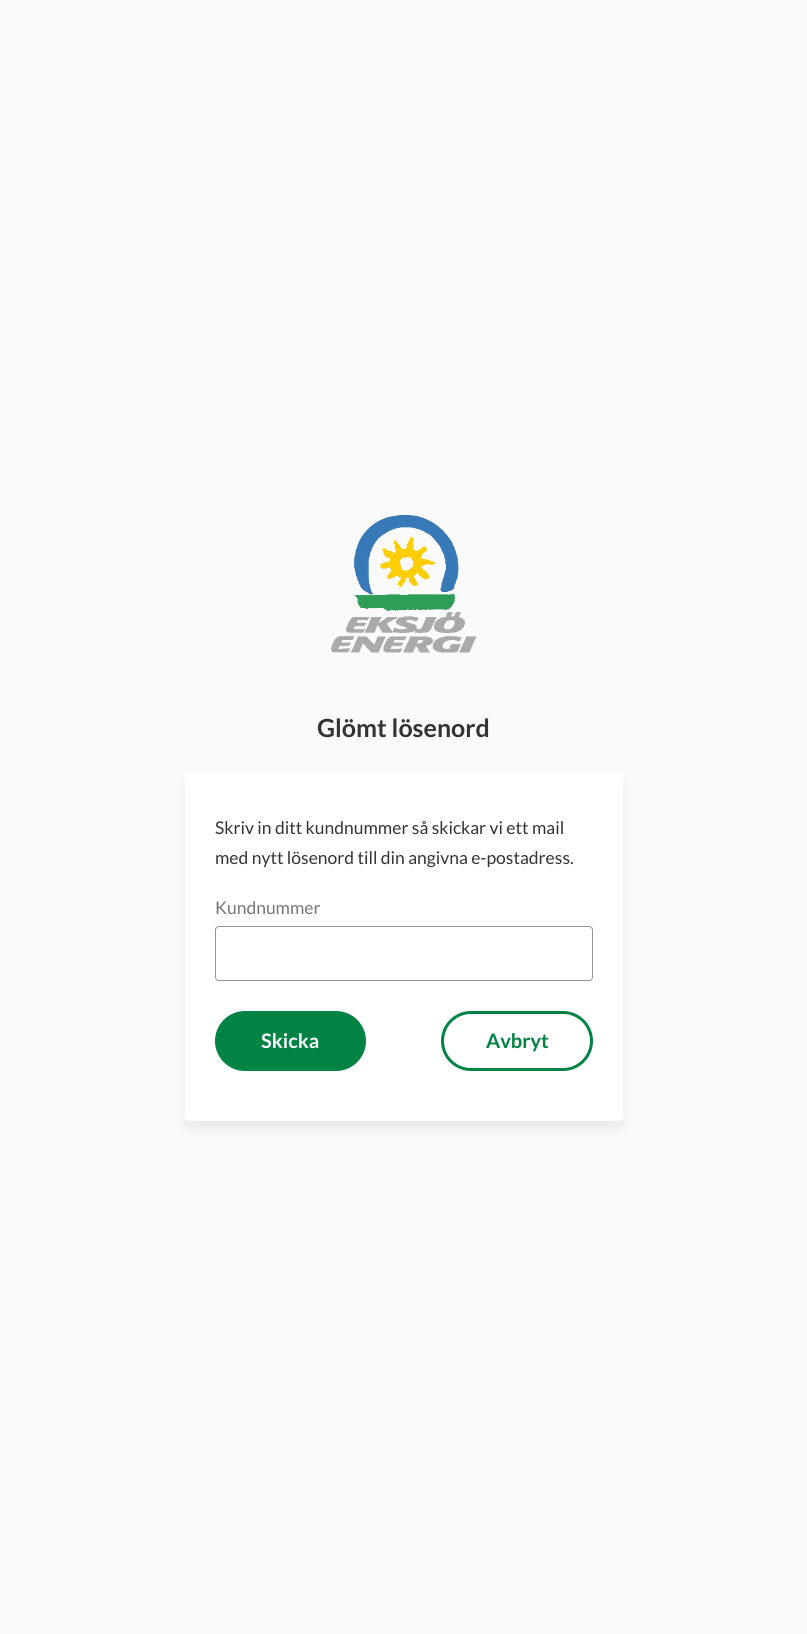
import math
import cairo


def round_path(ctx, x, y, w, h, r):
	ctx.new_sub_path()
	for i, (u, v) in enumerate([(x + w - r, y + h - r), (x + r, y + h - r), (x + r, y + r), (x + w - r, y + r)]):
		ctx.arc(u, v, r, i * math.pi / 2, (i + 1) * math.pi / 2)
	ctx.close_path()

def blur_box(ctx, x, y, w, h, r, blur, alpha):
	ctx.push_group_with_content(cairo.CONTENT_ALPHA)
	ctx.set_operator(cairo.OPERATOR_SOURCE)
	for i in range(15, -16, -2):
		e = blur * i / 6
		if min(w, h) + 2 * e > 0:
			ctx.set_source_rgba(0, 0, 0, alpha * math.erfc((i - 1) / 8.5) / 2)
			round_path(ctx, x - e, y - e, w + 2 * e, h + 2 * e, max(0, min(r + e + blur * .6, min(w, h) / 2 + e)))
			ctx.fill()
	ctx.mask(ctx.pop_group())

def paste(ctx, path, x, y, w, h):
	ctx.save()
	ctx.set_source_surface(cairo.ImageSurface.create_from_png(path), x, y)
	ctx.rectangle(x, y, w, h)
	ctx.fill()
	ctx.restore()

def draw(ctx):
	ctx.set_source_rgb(0.98, 0.98, 0.98)
	ctx.paint()
	paste(ctx, 'media/1.png', 331, 515, 146, 138)
	ctx.select_font_face('Lato', cairo.FONT_SLANT_NORMAL, cairo.FONT_WEIGHT_BOLD)
	ctx.set_font_size(25)
	ctx.set_source_rgb(0.2, 0.2, 0.2)
	ctx.move_to(317, 737)
	ctx.show_text('Glömt lösenord')
	ctx.set_source_rgb(0, 0, 0)
	blur_box(ctx, 185, 783, 438, 348, 5, 5, 0.06)
	ctx.set_source_rgb(1, 1, 1)
	round_path(ctx, 185, 773, 438, 348, 5)
	ctx.fill()
	ctx.select_font_face('Lato')
	ctx.set_font_size(17.5)
	ctx.set_source_rgb(0.2, 0.2, 0.2)
	ctx.move_to(215, 834)
	ctx.show_text('Skriv in ditt kundnummer så skickar vi ett mail')
	ctx.move_to(215, 864)
	ctx.show_text('med nytt lösenord till din angivna e-postadress.')
	ctx.set_source_rgb(0.459, 0.459, 0.459)
	ctx.move_to(215, 914)
	ctx.show_text('Kundnummer')
	round_path(ctx, 215.5, 926.5, 377, 54, 3.5)
	ctx.set_source_rgb(0.58, 0.58, 0.58)
	ctx.set_line_width(1)
	ctx.stroke()
	ctx.set_source_rgb(0, 0.514, 0.263)
	round_path(ctx, 216.5, 1012.5, 148, 57, 28.5)
	ctx.fill_preserve()
	ctx.set_line_width(3)
	ctx.stroke()
	ctx.select_font_face('Lato', cairo.FONT_SLANT_NORMAL, cairo.FONT_WEIGHT_BOLD)
	ctx.set_font_size(20)
	ctx.set_source_rgb(1, 1, 1)
	ctx.move_to(261, 1048)
	ctx.show_text('Skicka')
	round_path(ctx, 442.5, 1012.5, 149, 57, 28.5)
	ctx.set_source_rgb(0, 0.514, 0.263)
	ctx.stroke()
	ctx.move_to(486, 1048)
	ctx.show_text('Avbryt')


surface = cairo.ImageSurface(cairo.FORMAT_RGB24, 807, 1634)
ctx = cairo.Context(surface)
options = cairo.FontOptions()
options.set_hint_metrics(cairo.HINT_METRICS_OFF)
options.set_hint_style(cairo.HINT_STYLE_NONE)
ctx.set_font_options(options)
ctx.set_miter_limit(4)
draw(ctx)
surface.write_to_png('image.png')
